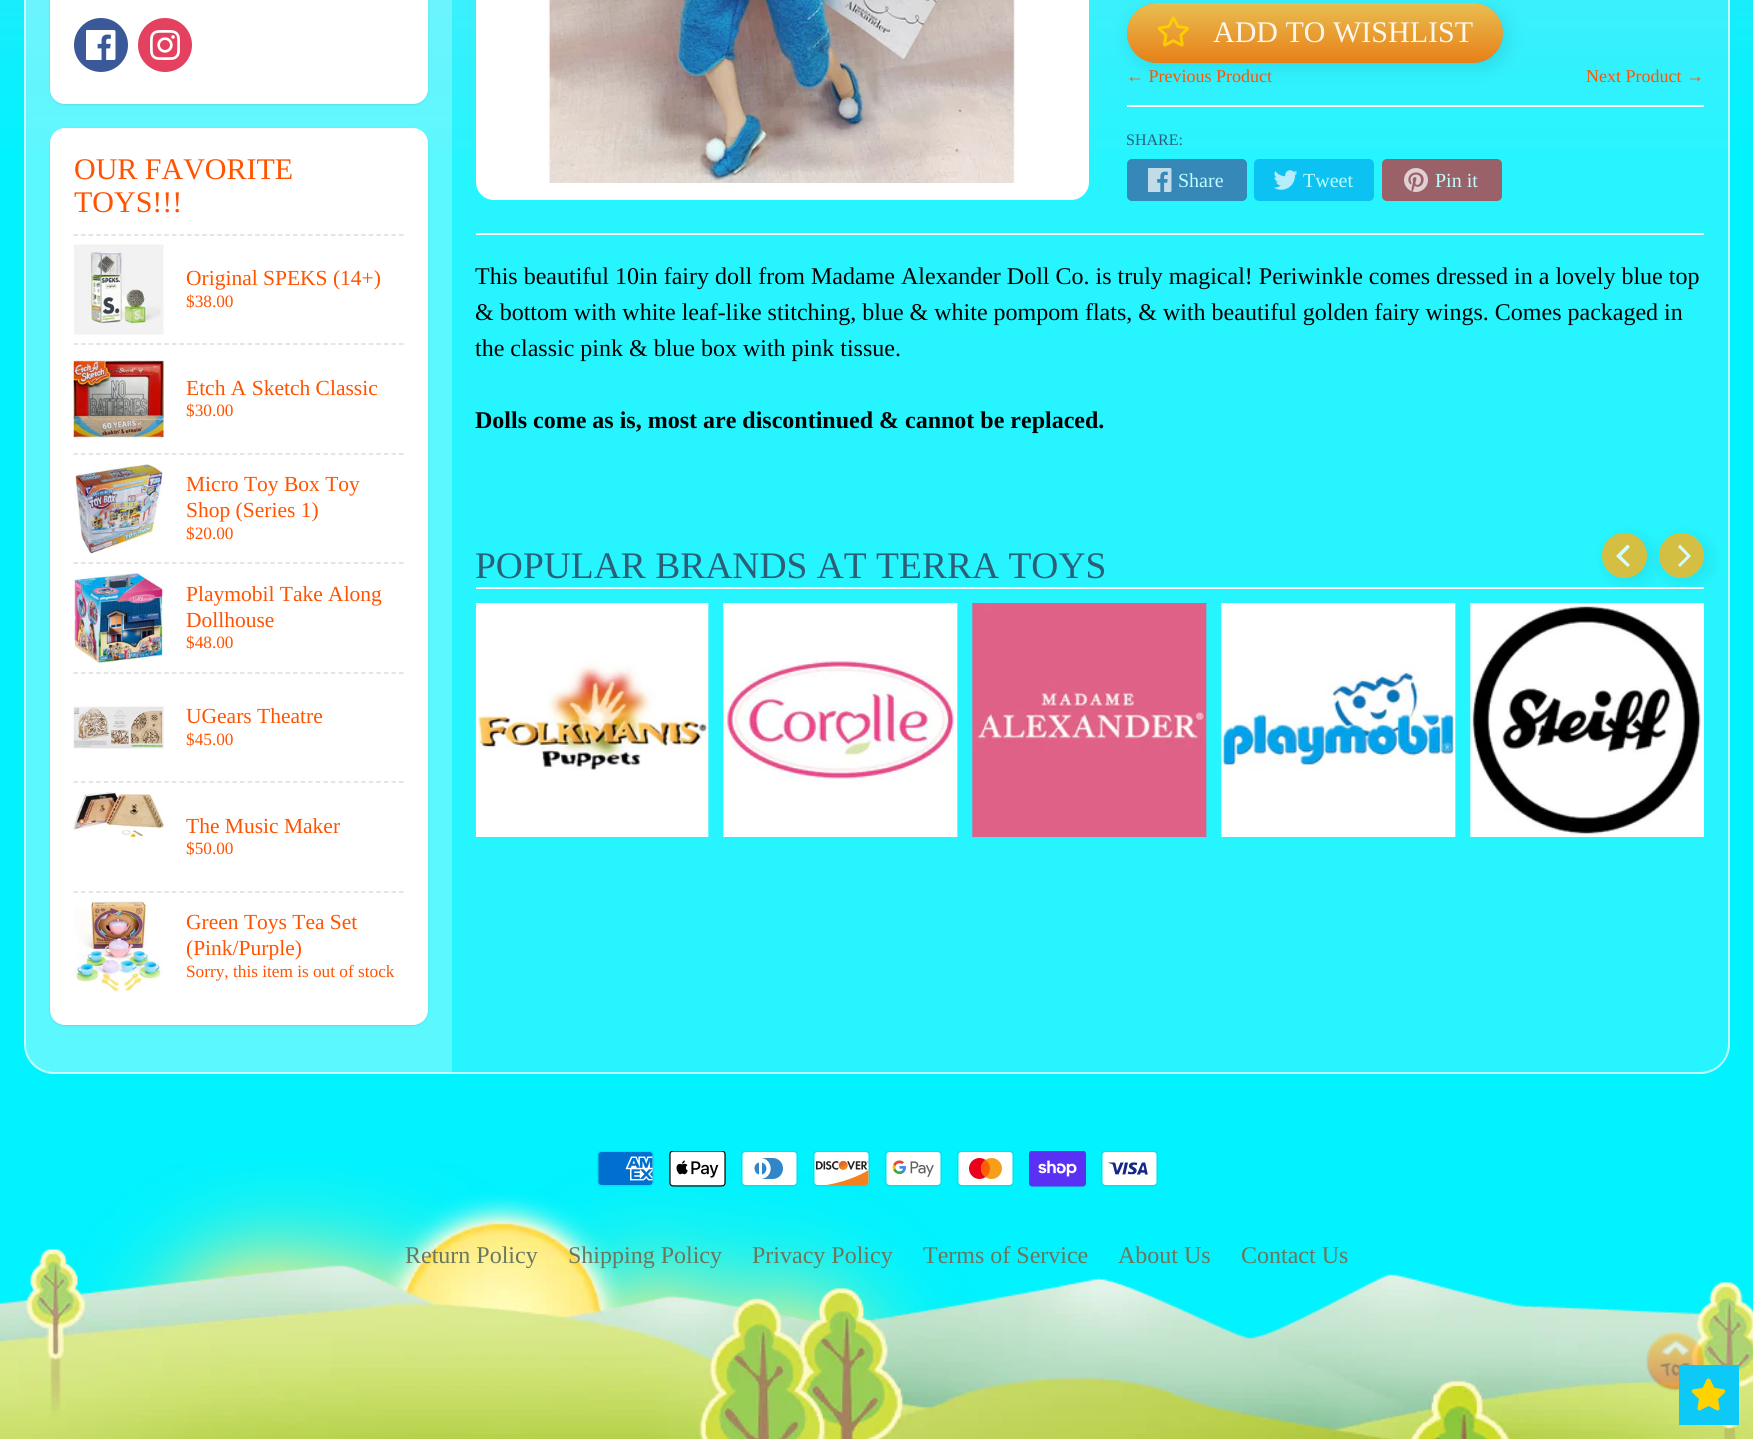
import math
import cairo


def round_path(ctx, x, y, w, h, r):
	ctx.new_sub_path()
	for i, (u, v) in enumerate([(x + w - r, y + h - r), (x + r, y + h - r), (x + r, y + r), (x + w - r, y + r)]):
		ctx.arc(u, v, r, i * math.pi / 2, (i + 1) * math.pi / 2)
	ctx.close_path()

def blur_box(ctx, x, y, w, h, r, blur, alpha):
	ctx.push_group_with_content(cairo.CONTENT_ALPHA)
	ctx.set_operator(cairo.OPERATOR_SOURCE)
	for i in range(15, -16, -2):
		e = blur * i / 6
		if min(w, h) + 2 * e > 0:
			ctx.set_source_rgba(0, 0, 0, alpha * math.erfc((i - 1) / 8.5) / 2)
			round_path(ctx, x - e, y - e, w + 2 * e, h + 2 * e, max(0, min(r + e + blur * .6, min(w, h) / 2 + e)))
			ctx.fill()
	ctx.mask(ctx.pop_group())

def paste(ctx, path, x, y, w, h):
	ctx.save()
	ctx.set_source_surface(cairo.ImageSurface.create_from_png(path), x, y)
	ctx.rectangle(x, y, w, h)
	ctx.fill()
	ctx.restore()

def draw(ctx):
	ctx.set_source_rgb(0, 0.953, 1)
	ctx.paint()
	paste(ctx, 'media/1.png', 0, 0, 1753, 149)
	ctx.set_source_rgba(1, 1, 1, 0.15)
	round_path(ctx, 24, -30, 1706, 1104, 30)
	ctx.fill()
	round_path(ctx, 25, -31, 1704, 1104, 29)
	ctx.set_source_rgba(1, 1, 1, 0.7)
	ctx.stroke()
	ctx.set_source_rgba(1, 1, 1, 0.25)
	ctx.new_path()
	ctx.move_to(55, -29)
	ctx.line_to(452, -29)
	ctx.line_to(452, 1073)
	ctx.line_to(55, 1073)
	ctx.curve_to(39, 1073, 26, 1060, 26, 1044)
	ctx.line_to(26, 0)
	ctx.curve_to(26, -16, 39, -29, 55, -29)
	ctx.close_path()
	ctx.fill()
	ctx.set_source_rgb(0, 0, 0)
	blur_box(ctx, 50, -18, 378, 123, 15, 1, 0.1)
	ctx.set_source_rgb(1, 1, 1)
	round_path(ctx, 50, -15, 378, 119, 15)
	ctx.fill()
	ctx.set_source_rgb(0.231, 0.349, 0.596)
	ctx.arc(101, 45, 27, 0, 2 * math.pi)
	ctx.fill()
	paste(ctx, 'media/2.png', 86, 30, 30, 30)
	ctx.set_source_rgb(0.894, 0.251, 0.373)
	ctx.arc(165, 45, 27, 0, 2 * math.pi)
	ctx.fill()
	paste(ctx, 'media/3.png', 150, 30, 30, 30)
	ctx.set_source_rgb(0, 0, 0)
	blur_box(ctx, 50, 129, 378, 897, 15, 1, 0.1)
	ctx.set_source_rgb(1, 1, 1)
	round_path(ctx, 50, 128, 378, 897, 15)
	ctx.fill()
	ctx.select_font_face('Liberation Serif')
	ctx.set_font_size(30)
	ctx.set_source_rgb(1, 0.325, 0)
	ctx.move_to(74, 179)
	ctx.show_text('OUR FAVORITE')
	ctx.move_to(74, 212)
	ctx.show_text('TOYS!!!')
	ctx.new_path()
	ctx.move_to(73.5, 235)
	ctx.line_to(403.5, 235)
	ctx.set_source_rgb(0.867, 0.867, 0.867)
	ctx.set_line_width(1.5)
	ctx.set_dash([4.5, 3.07])
	ctx.stroke()
	paste(ctx, 'media/4.png', 74, 244, 90, 91)
	ctx.set_font_size(21.5)
	ctx.set_source_rgb(1, 0.325, 0)
	ctx.move_to(186, 285)
	ctx.show_text('Original SPEKS (14+)')
	ctx.set_font_size(17.25)
	ctx.move_to(186, 307)
	ctx.show_text('$38.00')
	ctx.new_path()
	ctx.move_to(73.5, 344)
	ctx.line_to(403.5, 344)
	ctx.set_source_rgb(0.867, 0.867, 0.867)
	ctx.stroke()
	paste(ctx, 'media/5.png', 73, 359, 91, 80)
	ctx.set_font_size(21.5)
	ctx.set_source_rgb(1, 0.325, 0)
	ctx.move_to(186, 395)
	ctx.show_text('Etch A Sketch Classic')
	ctx.set_font_size(17.25)
	ctx.move_to(186, 416)
	ctx.show_text('$30.00')
	ctx.new_path()
	ctx.move_to(73.5, 454)
	ctx.line_to(403.5, 454)
	ctx.set_source_rgb(0.867, 0.867, 0.867)
	ctx.stroke()
	paste(ctx, 'media/6.png', 74, 463, 90, 91)
	ctx.set_font_size(21.5)
	ctx.set_source_rgb(1, 0.325, 0)
	ctx.move_to(186, 491)
	ctx.show_text('Micro Toy Box Toy')
	ctx.move_to(186, 517)
	ctx.show_text('Shop (Series 1)')
	ctx.set_font_size(17.25)
	ctx.move_to(186, 539)
	ctx.show_text('$20.00')
	ctx.new_path()
	ctx.move_to(73.5, 563)
	ctx.line_to(403.5, 563)
	ctx.set_source_rgb(0.867, 0.867, 0.867)
	ctx.stroke()
	paste(ctx, 'media/7.png', 74, 573, 90, 90)
	ctx.set_font_size(21.5)
	ctx.set_source_rgb(1, 0.325, 0)
	ctx.move_to(186, 601)
	ctx.show_text('Playmobil Take Along')
	ctx.move_to(186, 627)
	ctx.show_text('Dollhouse')
	ctx.set_font_size(17.25)
	ctx.move_to(186, 648)
	ctx.show_text('$48.00')
	ctx.new_path()
	ctx.move_to(73.5, 673)
	ctx.line_to(403.5, 673)
	ctx.set_source_rgb(0.867, 0.867, 0.867)
	ctx.stroke()
	paste(ctx, 'media/8.png', 73, 706, 91, 43)
	ctx.set_font_size(21.5)
	ctx.set_source_rgb(1, 0.325, 0)
	ctx.move_to(186, 723)
	ctx.show_text('UGears Theatre')
	ctx.set_font_size(17.25)
	ctx.move_to(186, 745)
	ctx.show_text('$45.00')
	ctx.new_path()
	ctx.move_to(73.5, 782)
	ctx.line_to(403.5, 782)
	ctx.set_source_rgb(0.867, 0.867, 0.867)
	ctx.stroke()
	paste(ctx, 'media/9.png', 73, 792, 91, 45)
	ctx.set_font_size(21.5)
	ctx.set_source_rgb(1, 0.325, 0)
	ctx.move_to(186, 833)
	ctx.show_text('The Music Maker')
	ctx.set_font_size(17.25)
	ctx.move_to(186, 854)
	ctx.show_text('$50.00')
	ctx.new_path()
	ctx.move_to(73.5, 892)
	ctx.line_to(403.5, 892)
	ctx.set_source_rgb(0.867, 0.867, 0.867)
	ctx.stroke()
	paste(ctx, 'media/10.png', 74, 901, 89, 91)
	ctx.set_font_size(21.5)
	ctx.set_source_rgb(1, 0.325, 0)
	ctx.move_to(186, 929)
	ctx.show_text('Green Toys Tea Set')
	ctx.move_to(186, 955)
	ctx.show_text('(Pink/Purple)')
	ctx.set_font_size(17.25)
	ctx.move_to(186, 977)
	ctx.show_text('Sorry, this item is out of stock')
	ctx.set_source_rgb(1, 1, 1)
	round_path(ctx, 476, -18, 613, 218, 18)
	ctx.fill()
	paste(ctx, 'media/11.png', 548, 0, 467, 183)
	ctx.save()
	ctx.set_fill_rule(cairo.FILL_RULE_EVEN_ODD)
	ctx.new_path()
	ctx.move_to(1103, 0)
	ctx.line_to(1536, 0)
	ctx.line_to(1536, 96)
	ctx.line_to(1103, 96)
	ctx.close_path()
	ctx.move_to(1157, 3)
	ctx.line_to(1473, 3)
	ctx.curve_to(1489.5, 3, 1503, 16.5, 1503, 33)
	ctx.curve_to(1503, 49.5, 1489.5, 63, 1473, 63)
	ctx.line_to(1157, 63)
	ctx.curve_to(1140.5, 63, 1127, 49.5, 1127, 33)
	ctx.curve_to(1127, 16.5, 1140.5, 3, 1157, 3)
	ctx.close_path()
	ctx.clip()
	ctx.set_source_rgb(0, 0, 0)
	blur_box(ctx, 1131, 8, 377, 60, 30, 9, 0.09)
	ctx.restore()
	ctx.set_source_rgba(0.051, 0.788, 0.969, 0.9)
	round_path(ctx, 1127, 3, 376, 60, 30)
	ctx.fill()
	gradient = cairo.LinearGradient(1315, 3, 1315, 63)
	gradient.add_color_stop_rgba(0, 1, 0.741, 0.243, 0.9)
	gradient.add_color_stop_rgba(1, 1, 0.467, 0, 0.9)
	ctx.set_source(gradient)
	round_path(ctx, 1127, 3, 376, 60, 30)
	ctx.fill()
	paste(ctx, 'media/12.png', 1157, 16, 32, 31)
	ctx.set_font_size(30)
	ctx.set_source_rgb(0.992, 0.961, 0.922)
	ctx.move_to(1213, 42)
	ctx.show_text('ADD TO WISHLIST')
	ctx.set_font_size(18)
	ctx.set_source_rgb(1, 0.325, 0)
	ctx.move_to(1126, 82)
	ctx.show_text('← Previous Product')
	ctx.move_to(1586, 82)
	ctx.show_text('Next Product →')
	ctx.set_source_rgb(1, 1, 1)
	ctx.rectangle(1127, 105, 577, 2)
	ctx.fill()
	ctx.set_font_size(16)
	ctx.set_source_rgb(0.169, 0.373, 0.467)
	ctx.move_to(1126, 145)
	ctx.show_text('SHARE:')
	ctx.set_source_rgb(0.208, 0.533, 0.718)
	round_path(ctx, 1127, 159, 120, 42, 5)
	ctx.fill()
	paste(ctx, 'media/13.png', 1148, 168, 24, 24)
	ctx.set_font_size(20)
	ctx.set_source_rgb(0.745, 0.988, 1)
	ctx.move_to(1178, 187)
	ctx.show_text('Share')
	ctx.set_source_rgb(0.043, 0.761, 0.949)
	round_path(ctx, 1254, 159, 120, 42, 5)
	ctx.fill()
	paste(ctx, 'media/14.png', 1274, 170, 24, 20)
	ctx.set_source_rgb(0.745, 0.988, 1)
	ctx.move_to(1303, 187)
	ctx.show_text('Tweet')
	ctx.set_source_rgb(0.604, 0.38, 0.408)
	round_path(ctx, 1382, 159, 120, 42, 5)
	ctx.fill()
	paste(ctx, 'media/15.png', 1404, 168, 24, 24)
	ctx.set_source_rgb(0.745, 0.988, 1)
	ctx.move_to(1435, 187)
	ctx.show_text('Pin it')
	ctx.set_source_rgb(1, 1, 1)
	ctx.rectangle(476, 233, 1228, 2)
	ctx.fill()
	ctx.set_font_size(24)
	ctx.set_source_rgb(0, 0, 0)
	for x, y, s in [
		(475, 284, 'This beautiful 10in fairy doll from Madame Alexander Doll Co. is truly magical! Periwinkle comes dressed in a lovely blue top'),
		(475, 320, '& bottom with white leaf-like stitching, blue & white pompom flats, & with beautiful golden fairy wings. Comes packaged in'),
		(475, 356, 'the classic pink & blue box with pink tissue.'),
	]:
		ctx.move_to(x, y)
		ctx.show_text(s)
	ctx.select_font_face('Liberation Serif', cairo.FONT_SLANT_NORMAL, cairo.FONT_WEIGHT_BOLD)
	ctx.move_to(475, 428)
	ctx.show_text('Dolls come as is, most are discontinued & cannot be replaced.')
	paste(ctx, 'media/20.png', 1470, 603, 234, 234)
	ctx.set_source_rgb(1, 1, 1)
	ctx.rectangle(476, 587, 1228, 2)
	ctx.fill()
	ctx.set_source_rgb(0, 0, 0)
	blur_box(ctx, 1607, 537, 45, 45, 22.5, 9, 0.08)
	ctx.set_source_rgb(0.831, 0.749, 0.259)
	ctx.arc(1624.5, 555.5, 22.5, 0, 2 * math.pi)
	ctx.fill()
	ctx.set_source_rgb(0.831, 0.992, 1)
	ctx.new_path()
	ctx.move_to(1616, 556)
	ctx.line_to(1627.5, 567)
	ctx.line_to(1630, 565)
	ctx.line_to(1621, 556)
	ctx.line_to(1630, 547)
	ctx.line_to(1627.5, 544.5)
	ctx.close_path()
	ctx.fill()
	ctx.save()
	ctx.set_fill_rule(cairo.FILL_RULE_EVEN_ODD)
	ctx.new_path()
	ctx.move_to(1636, 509)
	ctx.line_to(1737, 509)
	ctx.line_to(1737, 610)
	ctx.line_to(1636, 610)
	ctx.close_path()
	ctx.move_to(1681.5, 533)
	ctx.curve_to(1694, 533, 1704, 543, 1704, 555.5)
	ctx.curve_to(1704, 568, 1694, 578, 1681.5, 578)
	ctx.curve_to(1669, 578, 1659, 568, 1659, 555.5)
	ctx.curve_to(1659, 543, 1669, 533, 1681.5, 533)
	ctx.close_path()
	ctx.clip()
	ctx.set_source_rgb(0, 0, 0)
	blur_box(ctx, 1664, 537, 45, 45, 22.5, 9, 0.08)
	ctx.restore()
	ctx.set_source_rgba(1, 0.694, 0.075, 0.8)
	ctx.arc(1681.5, 555.5, 22.5, 0, 2 * math.pi)
	ctx.fill()
	ctx.set_source_rgb(0.831, 0.992, 1)
	ctx.new_path()
	ctx.move_to(1691, 556)
	ctx.line_to(1680, 544.5)
	ctx.line_to(1678, 547)
	ctx.line_to(1687, 556)
	ctx.line_to(1678, 565)
	ctx.line_to(1680, 567)
	ctx.close_path()
	ctx.fill()
	paste(ctx, 'media/16.png', 475, 603, 234, 234)
	paste(ctx, 'media/17.png', 723, 603, 235, 234)
	paste(ctx, 'media/18.png', 972, 603, 235, 234)
	paste(ctx, 'media/19.png', 1221, 603, 235, 234)
	ctx.select_font_face('Liberation Serif')
	ctx.set_font_size(37.5)
	ctx.set_source_rgb(0.169, 0.373, 0.467)
	ctx.move_to(475, 578)
	ctx.show_text('POPULAR BRANDS AT TERRA TOYS')
	paste(ctx, 'media/21.png', 0, 1163, 1753, 276)
	paste(ctx, 'media/22.png', 597, 1151, 57, 36)
	paste(ctx, 'media/23.png', 669, 1151, 57, 36)
	paste(ctx, 'media/24.png', 741, 1151, 57, 36)
	paste(ctx, 'media/25.png', 813, 1151, 57, 36)
	paste(ctx, 'media/26.png', 885, 1151, 57, 36)
	paste(ctx, 'media/27.png', 957, 1151, 57, 36)
	paste(ctx, 'media/28.png', 1029, 1151, 57, 36)
	paste(ctx, 'media/29.png', 1101, 1151, 57, 36)
	ctx.set_font_size(24)
	ctx.set_source_rgb(0.42, 0.463, 0.373)
	for x, y, s in [
		(405, 1263, 'Return Policy'),
		(568, 1263, 'Shipping Policy'),
		(752, 1263, 'Privacy Policy'),
		(923, 1263, 'Terms of Service'),
		(1118, 1263, 'About Us'),
		(1241, 1263, 'Contact Us'),
	]:
		ctx.move_to(x, y)
		ctx.show_text(s)
	paste(ctx, 'media/30.png', 1646, 1332, 59, 59)
	ctx.set_source_rgb(0.051, 0.788, 0.969)
	ctx.rectangle(1679, 1365, 60, 60)
	ctx.fill()
	paste(ctx, 'media/31.png', 1691, 1378, 35, 33)


surface = cairo.ImageSurface(cairo.FORMAT_RGB24, 1753, 1439)
ctx = cairo.Context(surface)
options = cairo.FontOptions()
options.set_hint_metrics(cairo.HINT_METRICS_OFF)
options.set_hint_style(cairo.HINT_STYLE_NONE)
ctx.set_font_options(options)
ctx.set_miter_limit(4)
draw(ctx)
surface.write_to_png('image.png')
